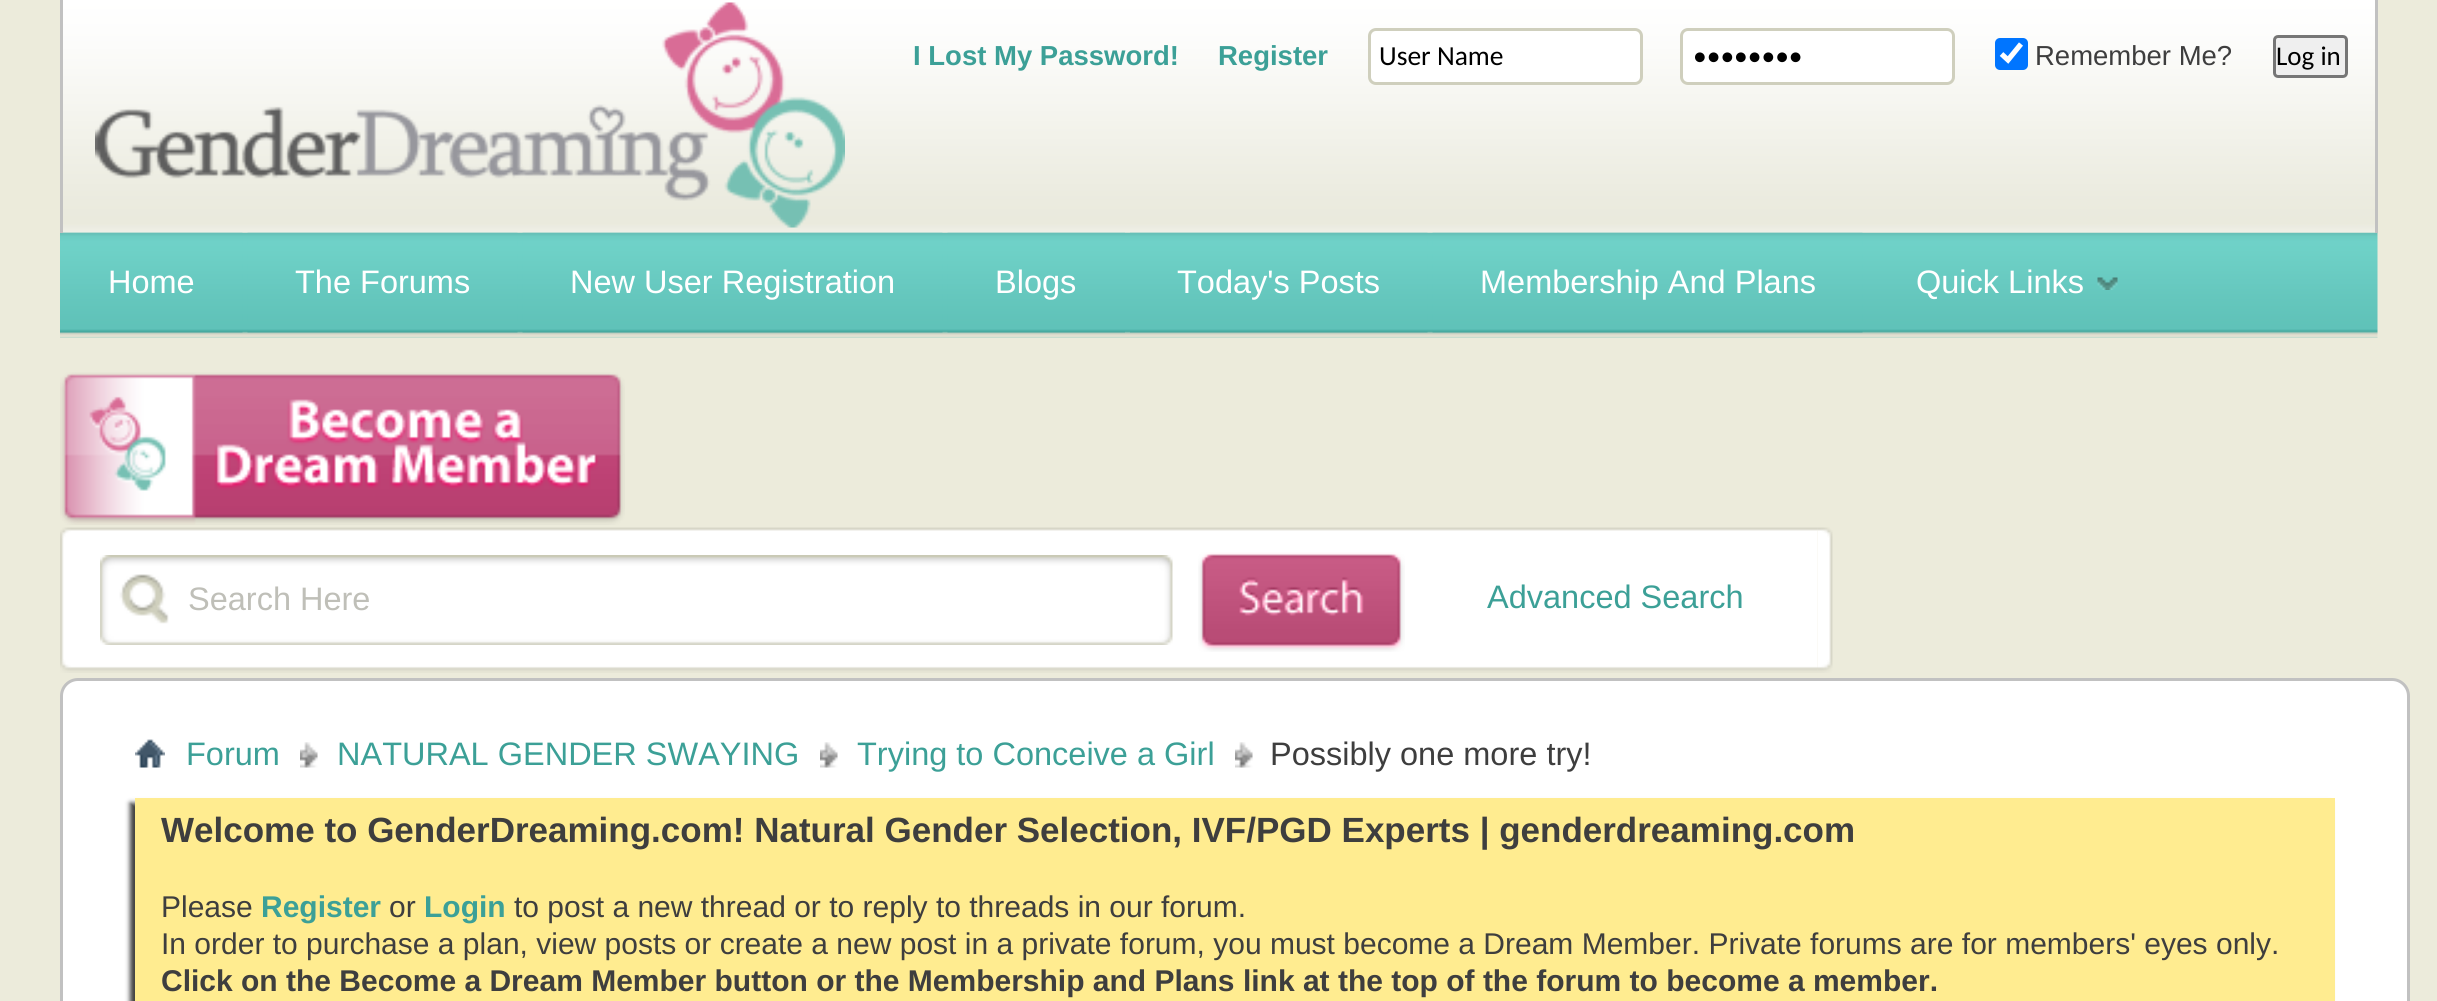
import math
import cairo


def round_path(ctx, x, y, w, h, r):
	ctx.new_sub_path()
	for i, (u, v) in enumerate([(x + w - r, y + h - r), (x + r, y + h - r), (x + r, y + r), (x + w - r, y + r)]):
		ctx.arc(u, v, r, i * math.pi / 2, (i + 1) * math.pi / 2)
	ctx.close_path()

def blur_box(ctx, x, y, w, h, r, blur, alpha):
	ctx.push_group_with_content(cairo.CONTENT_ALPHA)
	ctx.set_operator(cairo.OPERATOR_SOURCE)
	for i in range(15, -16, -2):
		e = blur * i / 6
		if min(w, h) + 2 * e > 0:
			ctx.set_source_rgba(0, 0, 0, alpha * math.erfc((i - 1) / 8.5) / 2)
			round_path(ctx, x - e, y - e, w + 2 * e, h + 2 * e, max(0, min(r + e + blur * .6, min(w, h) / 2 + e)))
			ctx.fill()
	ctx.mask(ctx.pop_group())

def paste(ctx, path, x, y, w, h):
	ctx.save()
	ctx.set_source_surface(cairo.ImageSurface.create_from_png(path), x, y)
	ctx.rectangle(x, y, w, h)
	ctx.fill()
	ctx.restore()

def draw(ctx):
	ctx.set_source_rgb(0.922, 0.918, 0.859)
	ctx.paint()
	paste(ctx, 'media/3.png', 60, 232, 2318, 106)
	paste(ctx, 'media/4.png', 60, 232, 183, 101)
	paste(ctx, 'media/5.png', 247, 232, 271, 101)
	paste(ctx, 'media/6.png', 522, 232, 421, 101)
	paste(ctx, 'media/7.png', 947, 232, 178, 101)
	paste(ctx, 'media/8.png', 1130, 232, 298, 101)
	paste(ctx, 'media/9.png', 1432, 232, 431, 101)
	paste(ctx, 'media/1.png', 63, 0, 2312, 233)
	ctx.set_source_rgb(0.757, 0.757, 0.757)
	ctx.rectangle(2375, 0, 3, 233)
	ctx.fill()
	ctx.rectangle(60, 0, 3, 233)
	ctx.fill()
	paste(ctx, 'media/2.png', 95, 2, 750, 226)
	ctx.select_font_face('Liberation Sans', cairo.FONT_SLANT_NORMAL, cairo.FONT_WEIGHT_BOLD)
	ctx.set_font_size(27.5)
	ctx.set_source_rgb(0.235, 0.627, 0.592)
	ctx.move_to(913, 65)
	ctx.show_text('I Lost My Password!')
	ctx.move_to(1218, 65)
	ctx.show_text('Register')
	ctx.set_source_rgb(1, 1, 1)
	round_path(ctx, 1369.5, 29.5, 272, 54, 6.5)
	ctx.fill_preserve()
	ctx.set_source_rgb(0.812, 0.812, 0.741)
	ctx.set_line_width(3)
	ctx.stroke()
	ctx.select_font_face('Carlito')
	ctx.set_source_rgb(0, 0, 0)
	ctx.move_to(1379, 65)
	ctx.show_text('User Name')
	ctx.set_source_rgb(1, 1, 1)
	round_path(ctx, 1681.5, 29.5, 272, 54, 6.5)
	ctx.fill_preserve()
	ctx.set_source_rgb(0.812, 0.812, 0.741)
	ctx.stroke()
	ctx.set_source_rgb(0, 0, 0)
	ctx.move_to(1693, 65)
	ctx.show_text('••••••••')
	ctx.set_source_rgb(0, 0.459, 1)
	round_path(ctx, 1995, 38, 33, 32, 5)
	ctx.fill()
	ctx.new_path()
	ctx.move_to(2001.5, 54)
	ctx.line_to(2008, 60)
	ctx.line_to(2021, 44)
	ctx.set_source_rgb(1, 1, 1)
	ctx.set_line_width(5.2)
	ctx.stroke()
	ctx.select_font_face('Liberation Sans')
	ctx.set_source_rgb(0.243, 0.243, 0.243)
	ctx.move_to(2035, 65)
	ctx.show_text('Remember Me?')
	ctx.set_source_rgb(0.937, 0.937, 0.937)
	round_path(ctx, 2274.5, 36.5, 72, 40, 3.5)
	ctx.fill_preserve()
	ctx.set_source_rgb(0.463, 0.463, 0.463)
	ctx.set_line_width(3)
	ctx.stroke()
	ctx.select_font_face('Carlito')
	ctx.set_font_size(27)
	ctx.set_source_rgb(0, 0, 0)
	ctx.move_to(2276, 65)
	ctx.show_text('Log in')
	ctx.select_font_face('Liberation Sans')
	ctx.set_font_size(32.5)
	ctx.set_source_rgb(1, 1, 1)
	for x, y, s in [
		(108, 293, 'Home'),
		(295, 293, 'The Forums'),
		(570, 293, 'New User Registration'),
		(995, 293, 'Blogs'),
		(1177, 293, 'Today\'s Posts'),
		(1480, 293, 'Membership And Plans'),
		(1916, 293, 'Quick Links'),
	]:
		ctx.move_to(x, y)
		ctx.show_text(s)
	paste(ctx, 'media/10.png', 2097, 277, 21, 13)
	paste(ctx, 'media/11.png', 60, 372, 565, 153)
	paste(ctx, 'media/12.png', 60, 527, 15, 146)
	paste(ctx, 'media/13.png', 1817, 527, 16, 146)
	paste(ctx, 'media/14.png', 75, 527, 1743, 146)
	paste(ctx, 'media/15.png', 100, 555, 1073, 90)
	ctx.set_source_rgb(0.749, 0.749, 0.722)
	ctx.move_to(188, 610)
	ctx.show_text('Search Here')
	paste(ctx, 'media/16.png', 1198, 552, 207, 100)
	ctx.set_source_rgb(0.235, 0.627, 0.592)
	ctx.move_to(1487, 608)
	ctx.show_text('Advanced Search')
	ctx.set_source_rgb(1, 1, 1)
	round_path(ctx, 61.5, 679.5, 2347, 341, 16.5)
	ctx.fill_preserve()
	ctx.set_source_rgb(0.757, 0.757, 0.757)
	ctx.stroke()
	paste(ctx, 'media/17.png', 135, 739, 30, 29)
	paste(ctx, 'media/18.png', 300, 742, 18, 26)
	ctx.set_source_rgb(0.235, 0.627, 0.592)
	ctx.move_to(186, 765)
	ctx.show_text('Forum')
	paste(ctx, 'media/19.png', 820, 742, 18, 26)
	ctx.move_to(337, 765)
	ctx.show_text('NATURAL GENDER SWAYING')
	paste(ctx, 'media/18.png', 1235, 742, 18, 26)
	ctx.move_to(857, 765)
	ctx.show_text('Trying to Conceive a Girl')
	ctx.set_source_rgb(0.243, 0.243, 0.243)
	ctx.move_to(1270, 765)
	ctx.show_text('Possibly one more try!')
	ctx.set_source_rgb(0.243, 0.243, 0.243)
	blur_box(ctx, 130, 803, 2200, 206, 0, 2.5, 1)
	ctx.set_source_rgb(1, 0.922, 0.565)
	ctx.rectangle(135, 798, 2200, 203)
	ctx.fill()
	ctx.select_font_face('Liberation Sans', cairo.FONT_SLANT_NORMAL, cairo.FONT_WEIGHT_BOLD)
	ctx.set_font_size(35)
	ctx.set_source_rgb(0.243, 0.243, 0.243)
	ctx.move_to(161, 842)
	ctx.show_text('Welcome to GenderDreaming.com! Natural Gender Selection, IVF/PGD Experts | genderdreaming.com')
	ctx.select_font_face('Liberation Sans')
	ctx.set_font_size(30)
	ctx.move_to(161, 917)
	ctx.show_text('Please')
	ctx.select_font_face('Liberation Sans', cairo.FONT_SLANT_NORMAL, cairo.FONT_WEIGHT_BOLD)
	ctx.set_source_rgb(0.235, 0.627, 0.592)
	ctx.move_to(261, 917)
	ctx.show_text('Register')
	ctx.select_font_face('Liberation Sans')
	ctx.set_source_rgb(0.243, 0.243, 0.243)
	ctx.move_to(389, 917)
	ctx.show_text('or')
	ctx.select_font_face('Liberation Sans', cairo.FONT_SLANT_NORMAL, cairo.FONT_WEIGHT_BOLD)
	ctx.set_source_rgb(0.235, 0.627, 0.592)
	ctx.move_to(424, 917)
	ctx.show_text('Login')
	ctx.select_font_face('Liberation Sans')
	ctx.set_source_rgb(0.243, 0.243, 0.243)
	ctx.move_to(514, 917)
	ctx.show_text('to post a new thread or to reply to threads in our forum.')
	ctx.move_to(161, 954)
	ctx.show_text('In order to purchase a plan, view posts or create a new post in a private forum, you must become a Dream Member. Private forums are for members\' eyes only.')
	ctx.select_font_face('Liberation Sans', cairo.FONT_SLANT_NORMAL, cairo.FONT_WEIGHT_BOLD)
	ctx.move_to(161, 991)
	ctx.show_text('Click on the Become a Dream Member button or the Membership and Plans link at the top of the forum to become a member.')


surface = cairo.ImageSurface(cairo.FORMAT_RGB24, 2437, 1001)
ctx = cairo.Context(surface)
options = cairo.FontOptions()
options.set_hint_metrics(cairo.HINT_METRICS_OFF)
options.set_hint_style(cairo.HINT_STYLE_NONE)
ctx.set_font_options(options)
ctx.set_miter_limit(4)
draw(ctx)
surface.write_to_png('image.png')
